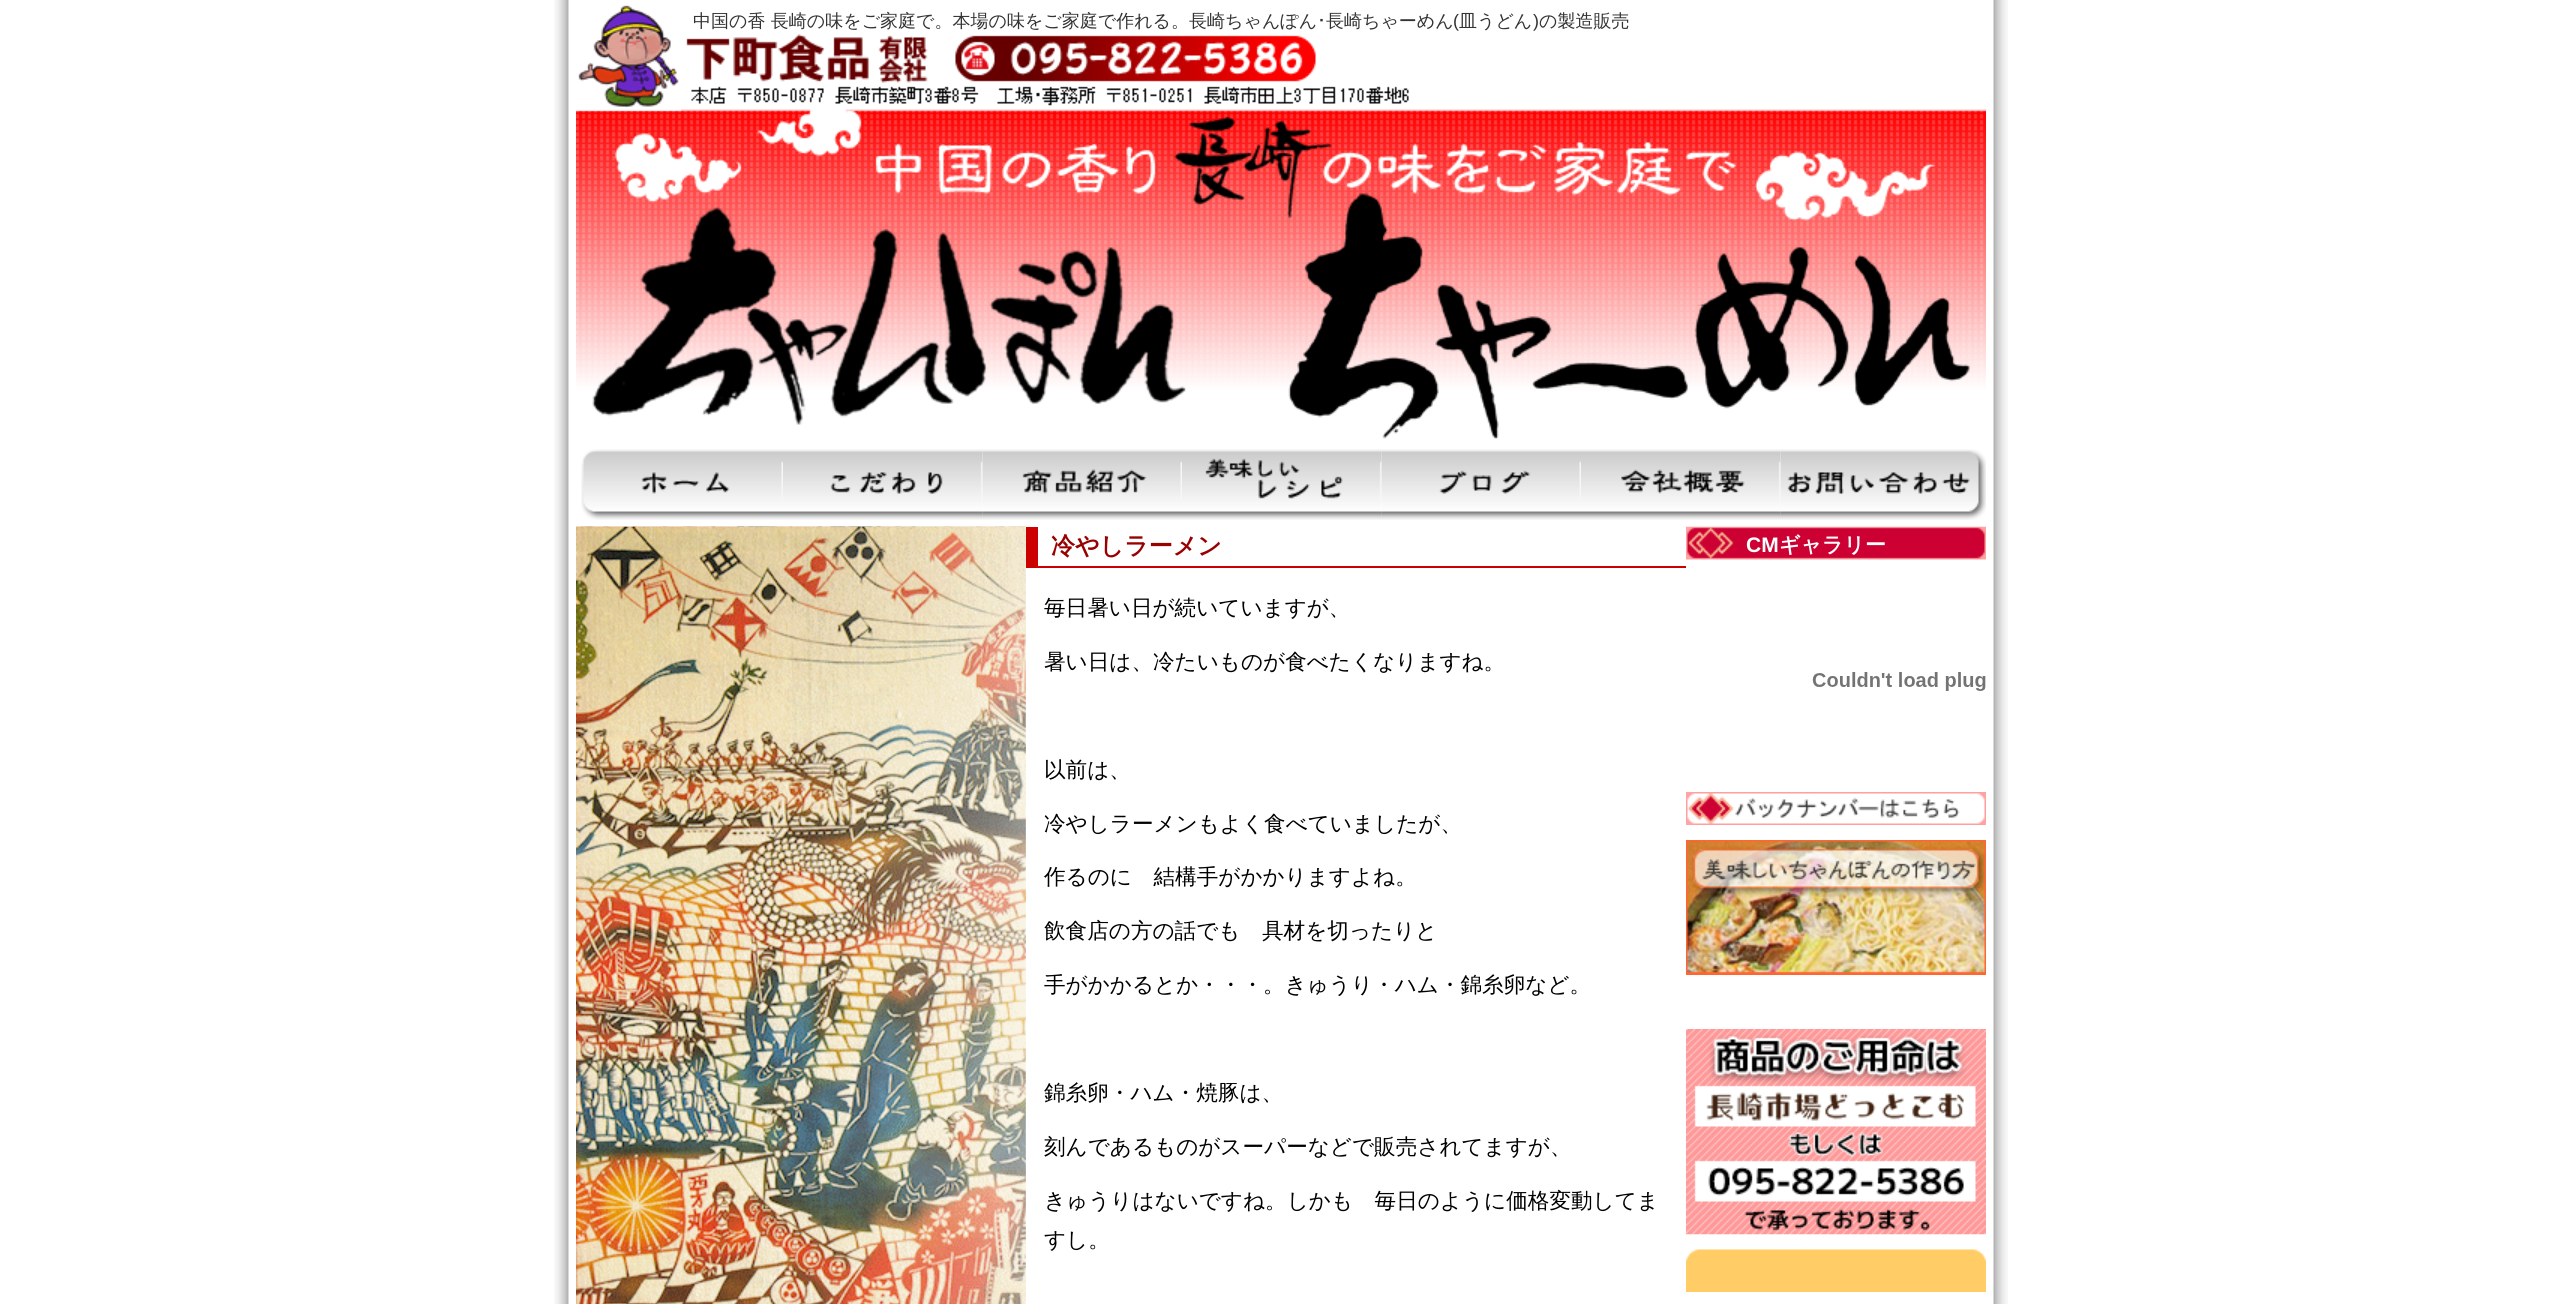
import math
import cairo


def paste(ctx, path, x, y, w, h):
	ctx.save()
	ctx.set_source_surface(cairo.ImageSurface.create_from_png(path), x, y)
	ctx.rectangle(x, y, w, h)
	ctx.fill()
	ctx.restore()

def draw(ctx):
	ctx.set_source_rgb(1, 1, 1)
	ctx.paint()
	paste(ctx, 'media/1.png', 554, 0, 1454, 1304)
	paste(ctx, 'media/2.png', 576, 5, 1410, 434)
	ctx.select_font_face('WenQuanYi Zen Hei Medium')
	ctx.set_font_size(18)
	ctx.set_source_rgb(0.2, 0.2, 0.2)
	ctx.move_to(693, 27)
	ctx.show_text('中国の香 長崎の味をご家庭で。本場の味をご家庭で作れる。長崎ちゃんぽん')
	ctx.select_font_face('IPAPGothic')
	ctx.move_to(1317, 27)
	ctx.show_text('･')
	ctx.select_font_face('WenQuanYi Zen Hei Medium')
	ctx.move_to(1326, 27)
	ctx.show_text('長崎ちゃーめん')
	ctx.select_font_face('Liberation Sans')
	ctx.move_to(1453, 27)
	ctx.show_text('(')
	ctx.select_font_face('WenQuanYi Zen Hei Medium')
	ctx.move_to(1459, 27)
	ctx.show_text('皿うどん')
	ctx.select_font_face('Liberation Sans')
	ctx.move_to(1533, 27)
	ctx.show_text(')')
	ctx.select_font_face('WenQuanYi Zen Hei Medium')
	ctx.move_to(1539, 27)
	ctx.show_text('の製造販売')
	paste(ctx, 'media/3.png', 581, 449, 202, 71)
	paste(ctx, 'media/4.png', 783, 449, 200, 71)
	paste(ctx, 'media/5.png', 982, 449, 200, 71)
	paste(ctx, 'media/6.png', 1182, 449, 200, 71)
	paste(ctx, 'media/7.png', 1381, 449, 200, 71)
	paste(ctx, 'media/8.png', 1581, 449, 200, 71)
	paste(ctx, 'media/9.png', 1780, 449, 206, 71)
	paste(ctx, 'media/10.png', 576, 526, 1110, 778)
	ctx.set_source_rgb(1, 1, 1)
	ctx.rectangle(1026, 527, 660, 777)
	ctx.fill()
	ctx.set_source_rgb(0.8, 0, 0)
	ctx.rectangle(1026, 566, 660, 2)
	ctx.rectangle(1026, 527, 12, 39)
	ctx.fill()
	ctx.select_font_face('WenQuanYi Zen Hei', cairo.FONT_SLANT_NORMAL, cairo.FONT_WEIGHT_BOLD)
	ctx.set_font_size(24)
	ctx.set_source_rgb(0.6, 0, 0)
	ctx.move_to(1051, 554)
	ctx.show_text('冷やしラーメン')
	ctx.select_font_face('WenQuanYi Zen Hei Medium')
	ctx.set_font_size(21.6)
	ctx.set_source_rgb(0, 0, 0)
	for x, y, s in [
		(1044, 615, '毎日暑い日が続いていますが、'),
		(1044, 669, '暑い日は、冷たいものが食べたくなりますね。'),
		(1044, 777, '以前は、'),
		(1044, 831, '冷やしラーメンもよく食べていましたが、'),
		(1044, 884, '作るのに　結構手がかかりますよね。'),
		(1044, 938, '飲食店の方の話でも　具材を切ったりと'),
		(1044, 992, '手がかかるとか・・・。きゅうり・ハム・錦糸卵など。'),
		(1044, 1100, '錦糸卵・ハム・焼豚は、'),
		(1044, 1154, '刻んであるものがスーパーなどで販売されてますが、'),
		(1044, 1208, 'きゅうりはないですね。しかも　毎日のように価格変動してま'),
		(1044, 1247, 'すし。'),
	]:
		ctx.move_to(x, y)
		ctx.show_text(s)
	paste(ctx, 'media/11.png', 1686, 526, 300, 34)
	ctx.select_font_face('Liberation Sans', cairo.FONT_SLANT_NORMAL, cairo.FONT_WEIGHT_BOLD)
	ctx.set_font_size(21)
	ctx.set_source_rgb(1, 1, 1)
	ctx.move_to(1746, 552)
	ctx.show_text('CM')
	ctx.select_font_face('WenQuanYi Zen Hei', cairo.FONT_SLANT_NORMAL, cairo.FONT_WEIGHT_BOLD)
	ctx.move_to(1779, 552)
	ctx.show_text('ギャラリー')
	paste(ctx, 'media/12.png', 1812, 672, 174, 19)
	paste(ctx, 'media/13.png', 1686, 792, 300, 33)
	paste(ctx, 'media/14.png', 1686, 840, 300, 135)
	paste(ctx, 'media/15.png', 1686, 1029, 300, 206)
	paste(ctx, 'media/16.png', 1686, 1249, 300, 21)
	ctx.set_source_rgb(1, 0.8, 0.4)
	ctx.rectangle(1686, 1270, 300, 22)
	ctx.fill()


surface = cairo.ImageSurface(cairo.FORMAT_RGB24, 2562, 1304)
ctx = cairo.Context(surface)
options = cairo.FontOptions()
options.set_hint_metrics(cairo.HINT_METRICS_OFF)
options.set_hint_style(cairo.HINT_STYLE_NONE)
ctx.set_font_options(options)
ctx.set_miter_limit(4)
draw(ctx)
surface.write_to_png('image.png')
